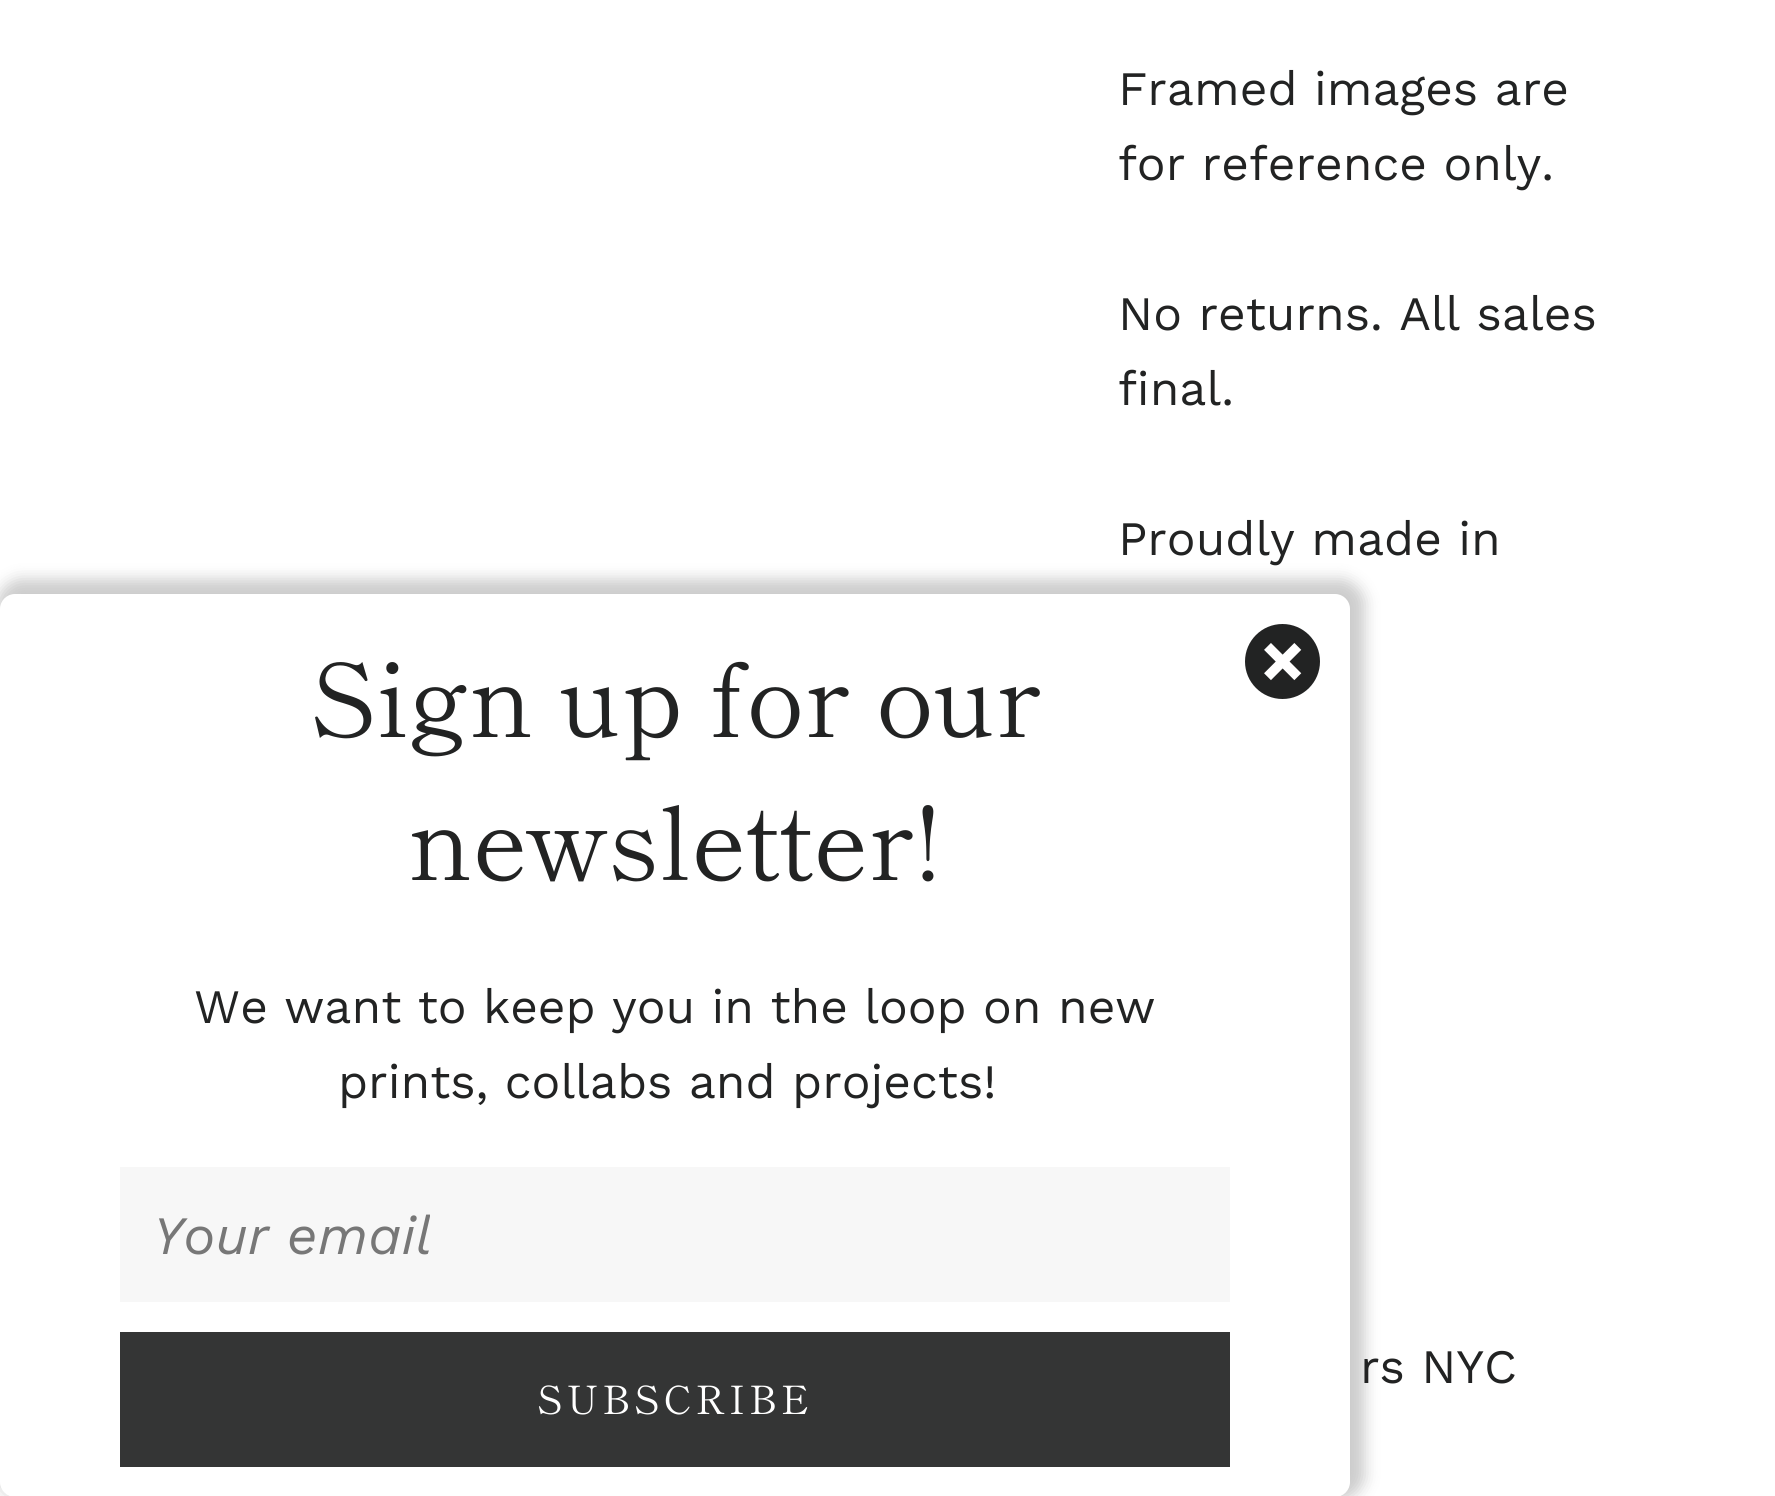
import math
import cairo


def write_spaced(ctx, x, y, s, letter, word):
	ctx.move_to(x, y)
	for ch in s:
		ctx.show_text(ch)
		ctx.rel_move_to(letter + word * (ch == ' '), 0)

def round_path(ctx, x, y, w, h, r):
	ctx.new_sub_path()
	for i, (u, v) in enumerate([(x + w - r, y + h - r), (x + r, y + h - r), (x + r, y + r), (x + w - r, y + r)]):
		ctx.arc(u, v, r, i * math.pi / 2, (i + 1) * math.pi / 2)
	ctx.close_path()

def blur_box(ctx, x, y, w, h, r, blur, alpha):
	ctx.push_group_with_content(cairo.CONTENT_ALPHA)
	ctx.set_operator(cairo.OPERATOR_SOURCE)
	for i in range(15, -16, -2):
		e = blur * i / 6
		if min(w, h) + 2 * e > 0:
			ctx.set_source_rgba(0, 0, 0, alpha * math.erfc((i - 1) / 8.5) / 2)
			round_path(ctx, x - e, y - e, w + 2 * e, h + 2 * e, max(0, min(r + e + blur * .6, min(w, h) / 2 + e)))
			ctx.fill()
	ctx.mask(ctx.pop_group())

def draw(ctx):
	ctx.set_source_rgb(1, 1, 1)
	ctx.paint()
	ctx.set_source_rgb(0, 0, 0)
	blur_box(ctx, -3, 579, 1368, 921, 24, 7.5, 0.2)
	ctx.set_source_rgb(1, 1, 1)
	round_path(ctx, 0, 594, 1350, 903, 15)
	ctx.fill()
	ctx.select_font_face('Shippori Mincho')
	ctx.set_font_size(102)
	ctx.set_source_rgb(0.133, 0.137, 0.137)
	ctx.move_to(310, 737)
	ctx.show_text('Sign up for our')
	ctx.move_to(408, 880)
	ctx.show_text('newsletter!')
	ctx.select_font_face('Work Sans')
	ctx.set_font_size(48)
	ctx.move_to(194, 1023)
	ctx.show_text('We want to keep you in the loop on new')
	ctx.move_to(338, 1098)
	ctx.show_text('prints, collabs and projects!')
	ctx.set_source_rgb(0.965, 0.965, 0.965)
	ctx.rectangle(120, 1167, 1110, 135)
	ctx.fill()
	ctx.select_font_face('Work Sans', cairo.FONT_SLANT_ITALIC)
	ctx.set_font_size(54)
	ctx.set_source_rgb(0.467, 0.467, 0.467)
	ctx.move_to(153, 1254)
	ctx.show_text('Your email')
	ctx.set_source_rgb(0.204, 0.208, 0.208)
	ctx.rectangle(120, 1332, 1110, 135)
	ctx.fill()
	ctx.select_font_face('Shippori Mincho')
	ctx.set_font_size(39)
	ctx.set_source_rgb(1, 1, 1)
	write_spaced(ctx, 537, 1414, 'SUBSCRIBE', 4, 0)
	ctx.set_source_rgb(0.133, 0.137, 0.137)
	ctx.new_path()
	ctx.arc(1282.5, 661.5, 37.5, 0, 2 * math.pi)
	ctx.fill()
	ctx.select_font_face('Work Sans', cairo.FONT_SLANT_NORMAL, cairo.FONT_WEIGHT_BOLD)
	ctx.set_font_size(75)
	ctx.set_source_rgb(1, 1, 1)
	ctx.move_to(1260, 686)
	ctx.show_text('×')
	ctx.select_font_face('Work Sans')
	ctx.set_font_size(48)
	ctx.set_source_rgb(0.133, 0.137, 0.137)
	for x, y, s in [
		(1118, 105, 'Framed images are'),
		(1118, 180, 'for reference only.'),
		(1118, 330, 'No returns. All sales'),
		(1118, 405, 'final.'),
		(1118, 555, 'Proudly made in'),
		(1360, 1383, 'rs NYC'),
	]:
		ctx.move_to(x, y)
		ctx.show_text(s)


surface = cairo.ImageSurface(cairo.FORMAT_RGB24, 1775, 1496)
ctx = cairo.Context(surface)
options = cairo.FontOptions()
options.set_hint_metrics(cairo.HINT_METRICS_OFF)
options.set_hint_style(cairo.HINT_STYLE_NONE)
ctx.set_font_options(options)
ctx.set_miter_limit(4)
draw(ctx)
surface.write_to_png('image.png')
